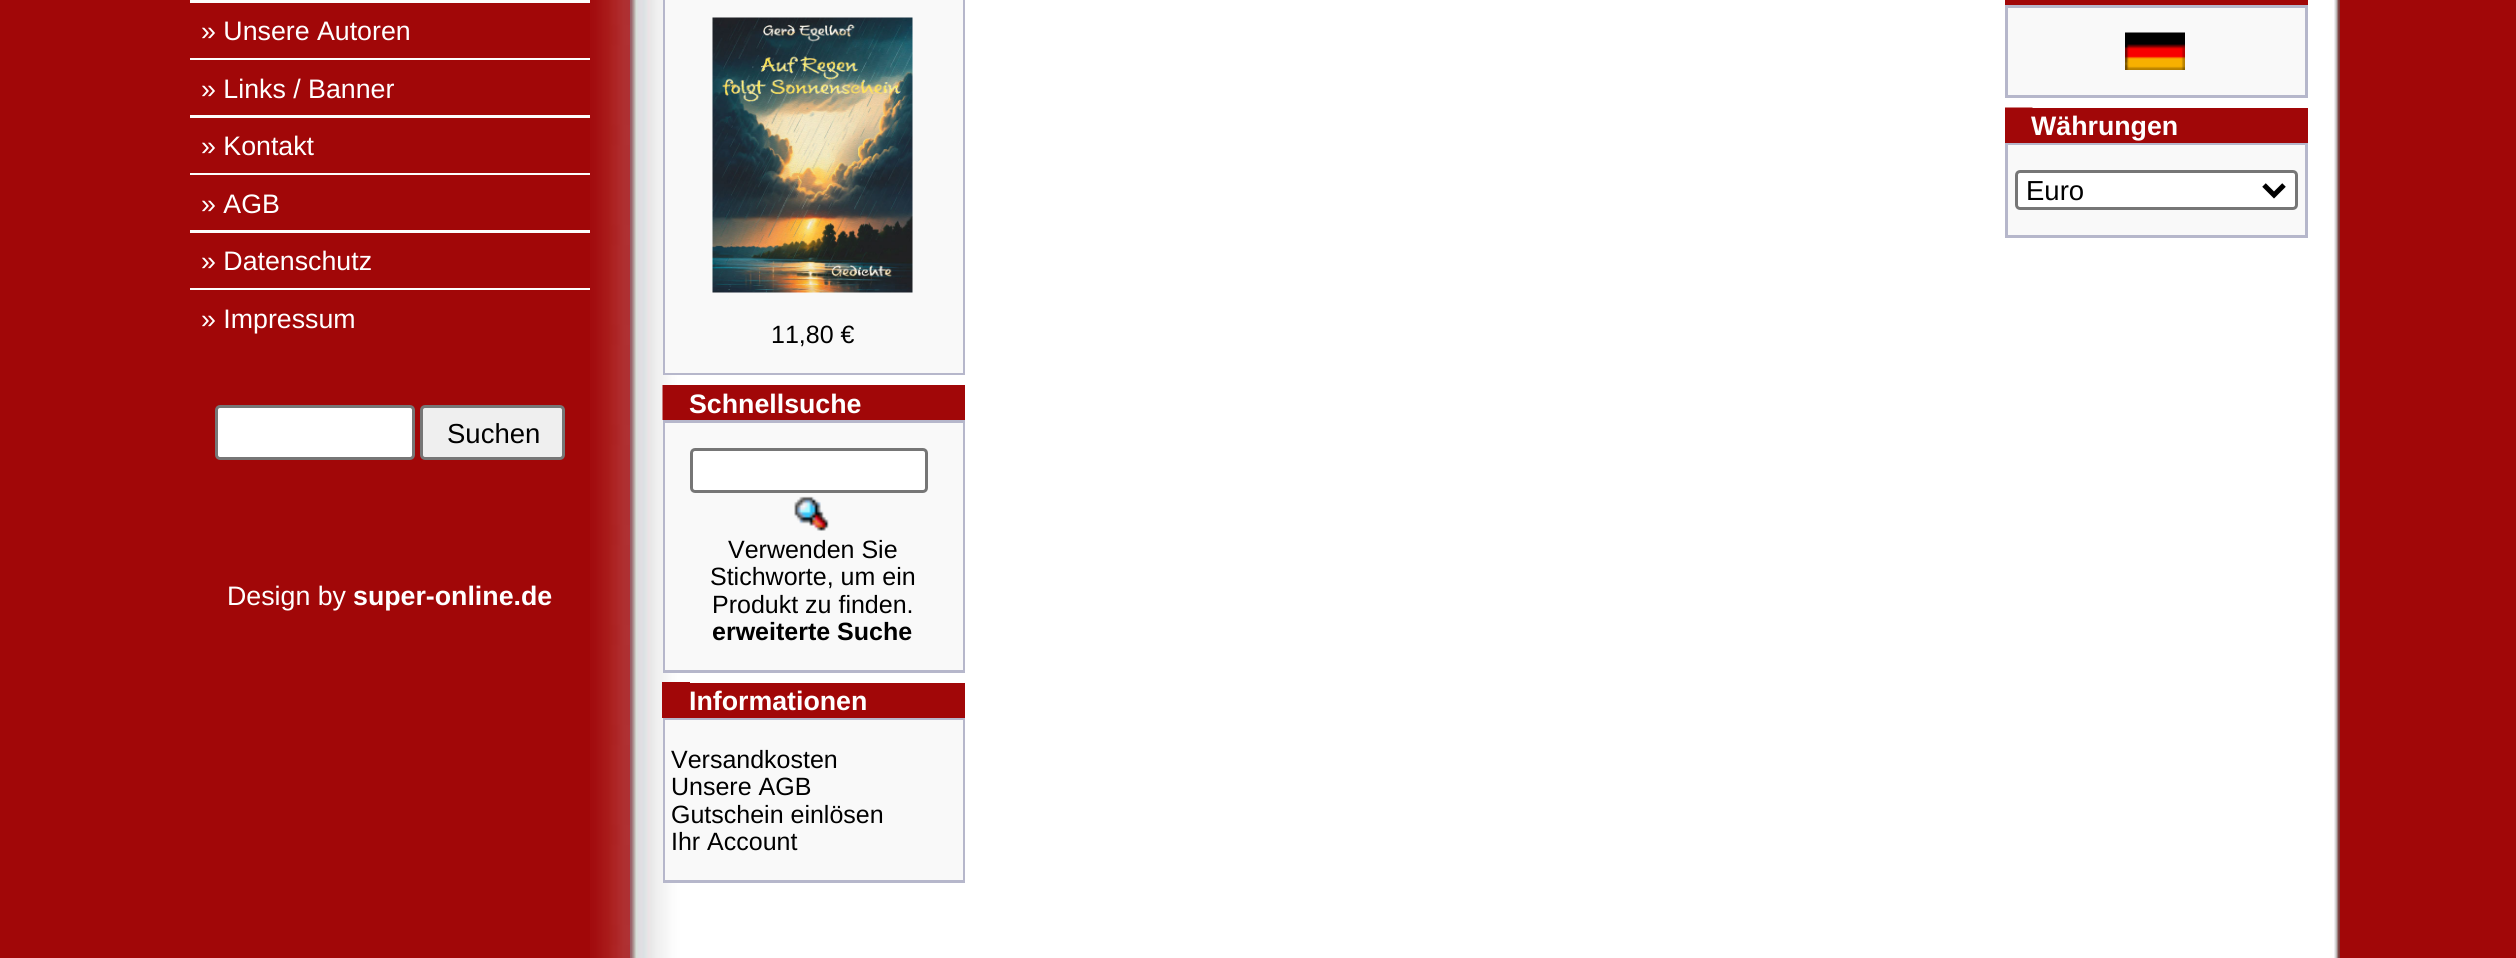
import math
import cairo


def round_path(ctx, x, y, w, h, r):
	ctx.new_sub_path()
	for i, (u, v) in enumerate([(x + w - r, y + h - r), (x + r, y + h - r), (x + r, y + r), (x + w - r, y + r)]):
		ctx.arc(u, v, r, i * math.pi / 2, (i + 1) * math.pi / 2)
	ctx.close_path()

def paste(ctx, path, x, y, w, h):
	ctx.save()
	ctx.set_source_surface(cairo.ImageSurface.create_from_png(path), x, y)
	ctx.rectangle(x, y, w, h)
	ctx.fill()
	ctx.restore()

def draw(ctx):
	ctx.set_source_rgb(0.631, 0.031, 0.035)
	ctx.paint()
	ctx.set_source_rgb(0.988, 0.988, 0.988)
	ctx.rectangle(190, 0, 400, 3)
	ctx.fill()
	ctx.select_font_face('Liberation Sans')
	ctx.set_font_size(26.75)
	ctx.set_source_rgb(1, 1, 1)
	ctx.move_to(201, 40)
	ctx.show_text('» Unsere Autoren')
	ctx.set_source_rgb(0.988, 0.988, 0.988)
	ctx.rectangle(190, 58, 400, 2)
	ctx.fill()
	ctx.set_source_rgb(1, 1, 1)
	ctx.move_to(201, 98)
	ctx.show_text('» Links / Banner')
	ctx.set_source_rgb(0.988, 0.988, 0.988)
	ctx.rectangle(190, 115, 400, 3)
	ctx.fill()
	ctx.set_source_rgb(1, 1, 1)
	ctx.move_to(201, 155)
	ctx.show_text('» Kontakt')
	ctx.set_source_rgb(0.988, 0.988, 0.988)
	ctx.rectangle(190, 173, 400, 2)
	ctx.fill()
	ctx.set_source_rgb(1, 1, 1)
	ctx.move_to(201, 213)
	ctx.show_text('» AGB')
	ctx.set_source_rgb(0.988, 0.988, 0.988)
	ctx.rectangle(190, 230, 400, 3)
	ctx.fill()
	ctx.set_source_rgb(1, 1, 1)
	ctx.move_to(201, 270)
	ctx.show_text('» Datenschutz')
	ctx.set_source_rgb(0.988, 0.988, 0.988)
	ctx.rectangle(190, 288, 400, 2)
	ctx.fill()
	ctx.set_source_rgb(1, 1, 1)
	ctx.move_to(201, 328)
	ctx.show_text('» Impressum')
	round_path(ctx, 216.5, 406.5, 197, 52, 3.5)
	ctx.fill_preserve()
	ctx.set_source_rgb(0.463, 0.463, 0.463)
	ctx.set_line_width(3)
	ctx.stroke()
	ctx.set_source_rgb(0.937, 0.937, 0.937)
	round_path(ctx, 421.5, 406.5, 142, 52, 3.5)
	ctx.fill_preserve()
	ctx.set_source_rgb(0.463, 0.463, 0.463)
	ctx.stroke()
	ctx.set_font_size(27.5)
	ctx.set_source_rgb(0, 0, 0)
	ctx.move_to(447, 443)
	ctx.show_text('Suchen')
	ctx.set_font_size(26.75)
	ctx.set_source_rgb(1, 1, 1)
	ctx.move_to(227, 605)
	ctx.show_text('Design by')
	ctx.select_font_face('Liberation Sans', cairo.FONT_SLANT_NORMAL, cairo.FONT_WEIGHT_BOLD)
	ctx.move_to(353, 605)
	ctx.show_text('super-online.de')
	paste(ctx, 'media/1.png', 590, 0, 40, 958)
	paste(ctx, 'media/2.png', 630, 0, 1710, 958)
	ctx.set_source_rgb(0.631, 0.031, 0.035)
	ctx.rectangle(2005, 0, 303, 5)
	ctx.fill()
	ctx.set_source_rgb(0.714, 0.718, 0.796)
	ctx.rectangle(2005, 5, 303, 93)
	ctx.fill()
	ctx.set_source_rgb(0.973, 0.973, 0.976)
	ctx.rectangle(2008, 8, 297, 87)
	ctx.fill()
	paste(ctx, 'media/3.png', 2125, 32, 60, 38)
	ctx.set_source_rgb(0.631, 0.031, 0.035)
	ctx.rectangle(2005, 108, 303, 35)
	ctx.fill()
	paste(ctx, 'media/4.png', 2005, 107, 28, 1)
	ctx.set_source_rgb(1, 1, 1)
	ctx.move_to(2031, 135)
	ctx.show_text('Währungen')
	ctx.set_source_rgb(0.714, 0.718, 0.796)
	ctx.rectangle(2005, 143, 303, 95)
	ctx.fill()
	ctx.set_source_rgb(0.973, 0.973, 0.976)
	ctx.rectangle(2008, 145, 297, 90)
	ctx.fill()
	ctx.set_source_rgb(1, 1, 1)
	round_path(ctx, 2016.5, 171.5, 280, 37, 3.5)
	ctx.fill_preserve()
	ctx.set_source_rgb(0.463, 0.463, 0.463)
	ctx.stroke()
	ctx.new_path()
	ctx.move_to(2264, 185)
	ctx.line_to(2274, 195)
	ctx.line_to(2284, 185)
	ctx.set_source_rgb(0, 0, 0)
	ctx.set_line_width(5)
	ctx.stroke()
	ctx.select_font_face('Liberation Sans')
	ctx.set_font_size(27.5)
	ctx.move_to(2026, 200)
	ctx.show_text('Euro')
	ctx.set_source_rgb(0.714, 0.718, 0.796)
	ctx.rectangle(663, 0, 302, 375)
	ctx.fill()
	ctx.set_source_rgb(0.973, 0.973, 0.976)
	ctx.rectangle(665, 0, 298, 373)
	ctx.fill()
	paste(ctx, 'media/5.png', 712, 17, 201, 276)
	ctx.set_font_size(25)
	ctx.set_source_rgb(0, 0, 0)
	ctx.move_to(771, 343)
	ctx.show_text('11,80 €')
	ctx.set_source_rgb(0.631, 0.031, 0.035)
	ctx.rectangle(663, 385, 302, 35)
	ctx.fill()
	ctx.set_source_rgb(0.792, 0.494, 0.494)
	ctx.rectangle(662, 385, 1, 35)
	ctx.fill()
	ctx.select_font_face('Liberation Sans', cairo.FONT_SLANT_NORMAL, cairo.FONT_WEIGHT_BOLD)
	ctx.set_font_size(26.75)
	ctx.set_source_rgb(1, 1, 1)
	ctx.move_to(689, 413)
	ctx.show_text('Schnellsuche')
	ctx.set_source_rgb(0.714, 0.718, 0.796)
	ctx.rectangle(663, 420, 302, 253)
	ctx.fill()
	ctx.set_source_rgb(0.973, 0.973, 0.976)
	ctx.rectangle(665, 423, 298, 247)
	ctx.fill()
	ctx.set_source_rgb(1, 1, 1)
	round_path(ctx, 691.5, 449.5, 235, 42, 3.5)
	ctx.fill_preserve()
	ctx.set_source_rgb(0.463, 0.463, 0.463)
	ctx.set_line_width(3)
	ctx.stroke()
	paste(ctx, 'media/6.png', 794, 496, 35, 35)
	ctx.select_font_face('Liberation Sans')
	ctx.set_font_size(25)
	ctx.set_source_rgb(0, 0, 0)
	for x, y, s in [
		(728, 558, 'Verwenden Sie'),
		(710, 585, 'Stichworte, um ein'),
		(712, 613, 'Produkt zu finden.'),
	]:
		ctx.move_to(x, y)
		ctx.show_text(s)
	ctx.select_font_face('Liberation Sans', cairo.FONT_SLANT_NORMAL, cairo.FONT_WEIGHT_BOLD)
	ctx.move_to(712, 640)
	ctx.show_text('erweiterte Suche')
	ctx.set_source_rgb(0.631, 0.031, 0.035)
	ctx.rectangle(662, 682, 28, 36)
	ctx.fill()
	ctx.rectangle(690, 683, 275, 35)
	ctx.fill()
	ctx.set_font_size(26.75)
	ctx.set_source_rgb(1, 1, 1)
	ctx.move_to(689, 710)
	ctx.show_text('Informationen')
	ctx.set_source_rgb(0.714, 0.718, 0.796)
	ctx.rectangle(663, 718, 302, 165)
	ctx.fill()
	ctx.set_source_rgb(0.973, 0.973, 0.976)
	ctx.rectangle(665, 720, 298, 160)
	ctx.fill()
	ctx.select_font_face('Liberation Sans')
	ctx.set_font_size(25)
	ctx.set_source_rgb(0, 0, 0)
	for x, y, s in [
		(671, 768, 'Versandkosten'),
		(671, 795, 'Unsere AGB'),
		(671, 823, 'Gutschein einlösen'),
		(671, 850, 'Ihr Account'),
	]:
		ctx.move_to(x, y)
		ctx.show_text(s)


surface = cairo.ImageSurface(cairo.FORMAT_RGB24, 2516, 958)
ctx = cairo.Context(surface)
options = cairo.FontOptions()
options.set_hint_metrics(cairo.HINT_METRICS_OFF)
options.set_hint_style(cairo.HINT_STYLE_NONE)
ctx.set_font_options(options)
ctx.set_miter_limit(4)
draw(ctx)
surface.write_to_png('image.png')
